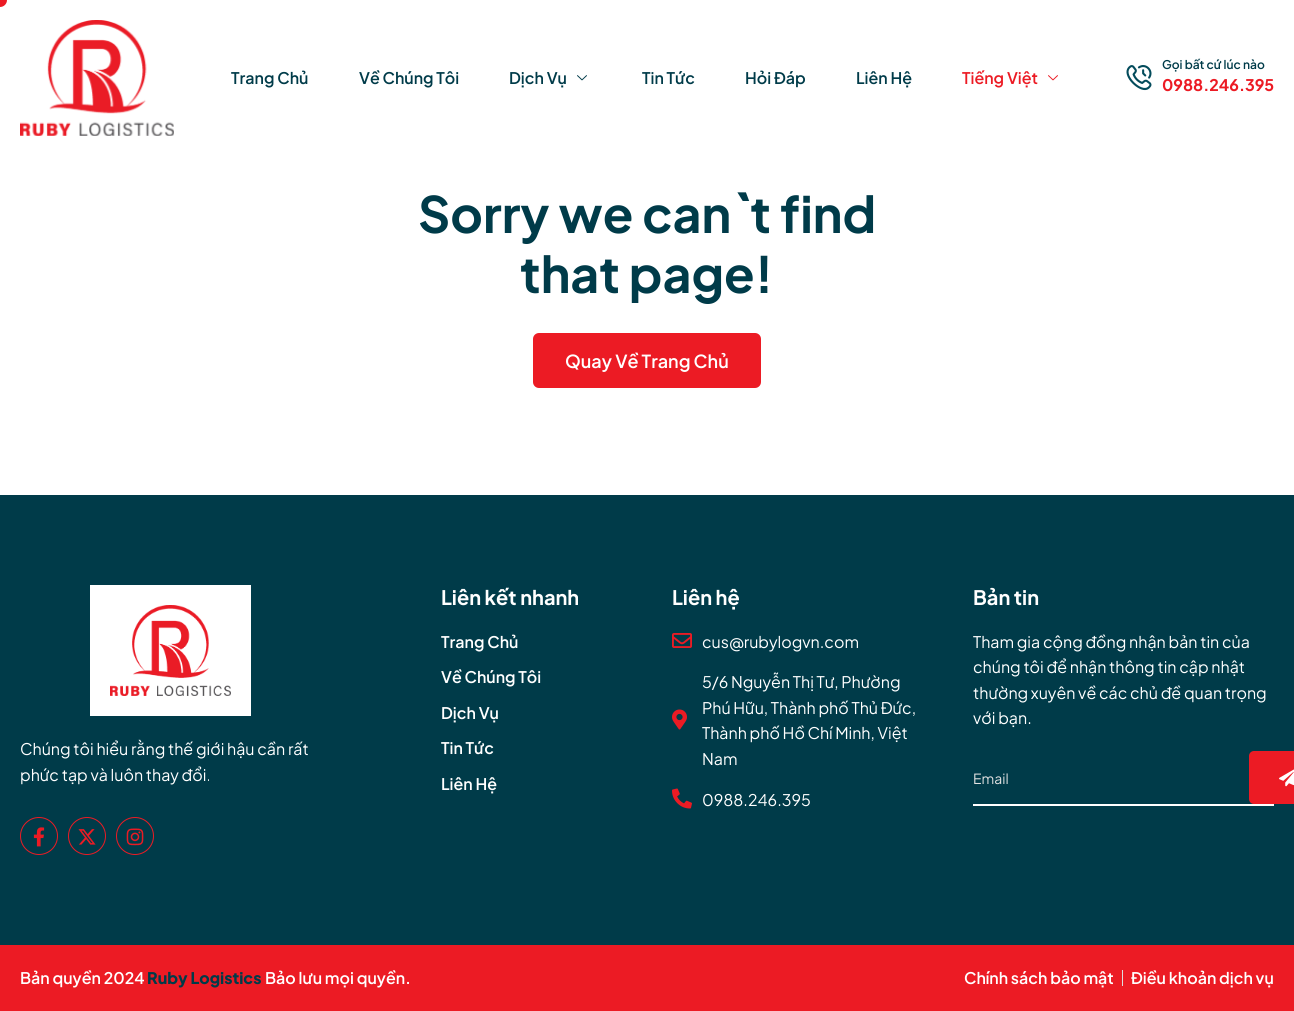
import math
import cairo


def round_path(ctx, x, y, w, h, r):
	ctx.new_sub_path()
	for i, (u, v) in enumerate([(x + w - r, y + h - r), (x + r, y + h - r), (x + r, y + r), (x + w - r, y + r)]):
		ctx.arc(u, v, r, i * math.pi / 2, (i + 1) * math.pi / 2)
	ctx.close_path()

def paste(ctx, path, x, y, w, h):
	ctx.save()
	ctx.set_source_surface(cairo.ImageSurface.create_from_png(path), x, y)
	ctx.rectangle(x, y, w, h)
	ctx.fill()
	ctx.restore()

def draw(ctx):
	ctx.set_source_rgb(1, 1, 1)
	ctx.paint()
	ctx.set_source_rgb(0.922, 0.106, 0.141)
	ctx.arc(0, 0, 7, 0, 2 * math.pi)
	ctx.fill()
	paste(ctx, 'media/1.png', 20, 20, 154, 116)
	ctx.select_font_face('Plus Jakarta Sans SemiBold')
	ctx.set_font_size(16)
	ctx.set_source_rgb(0, 0.231, 0.286)
	for x, y, s in [
		(231, 84, 'Trang Chủ'),
		(359, 84, 'Về Chúng Tôi'),
		(509, 84, 'Dịch Vụ'),
	]:
		ctx.move_to(x, y)
		ctx.show_text(s)
	paste(ctx, 'media/2.png', 577, 75, 10, 6)
	for x, y, s in [
		(642, 84, 'Tin Tức'),
		(745, 84, 'Hỏi Đáp'),
		(856, 84, 'Liên Hệ'),
	]:
		ctx.move_to(x, y)
		ctx.show_text(s)
	ctx.set_source_rgb(0.922, 0.106, 0.141)
	ctx.move_to(962, 84)
	ctx.show_text('Tiếng Việt')
	paste(ctx, 'media/3.png', 1048, 75, 10, 6)
	paste(ctx, 'media/4.png', 1126, 65, 26, 26)
	ctx.set_font_size(12)
	ctx.set_source_rgb(0, 0.231, 0.286)
	ctx.move_to(1162, 69)
	ctx.show_text('Gọi bất cứ lúc nào')
	ctx.select_font_face('Plus Jakarta Sans', cairo.FONT_SLANT_NORMAL, cairo.FONT_WEIGHT_BOLD)
	ctx.set_font_size(16)
	ctx.set_source_rgb(0.922, 0.106, 0.141)
	ctx.move_to(1162, 91)
	ctx.show_text('0988.246.395')
	ctx.set_font_size(50)
	ctx.set_source_rgb(0, 0.231, 0.286)
	ctx.move_to(418, 233)
	ctx.show_text('Sorry we can`t find')
	ctx.move_to(520, 293)
	ctx.show_text('that page!')
	ctx.set_source_rgb(0.922, 0.106, 0.141)
	round_path(ctx, 534, 334, 226, 53, 5)
	ctx.fill_preserve()
	ctx.stroke()
	ctx.select_font_face('Plus Jakarta Sans SemiBold')
	ctx.set_font_size(18)
	ctx.set_source_rgb(1, 1, 1)
	ctx.move_to(565, 368)
	ctx.show_text('Quay Về Trang Chủ')
	ctx.set_source_rgb(0, 0.231, 0.286)
	ctx.rectangle(0, 495, 1294, 450)
	ctx.fill()
	ctx.set_source_rgb(1, 1, 1)
	ctx.rectangle(90, 585, 161, 131)
	ctx.fill()
	paste(ctx, 'media/5.png', 110, 605, 121, 91)
	ctx.select_font_face('Plus Jakarta Sans')
	ctx.set_font_size(16)
	ctx.move_to(20, 755)
	ctx.show_text('Chúng tôi hiểu rằng thế giới hậu cần rất')
	ctx.move_to(20, 781)
	ctx.show_text('phức tạp và luôn thay đổi.')
	ctx.new_path()
	ctx.arc(39, 836, 18.5, 0, 2 * math.pi)
	ctx.set_source_rgb(0.922, 0.106, 0.141)
	ctx.set_line_width(1)
	ctx.stroke()
	paste(ctx, 'media/6.png', 33, 827, 12, 20)
	ctx.arc(87, 836, 18.5, 0, 2 * math.pi)
	ctx.stroke()
	paste(ctx, 'media/7.png', 78, 829, 18, 16)
	ctx.arc(135, 836, 18.5, 0, 2 * math.pi)
	ctx.stroke()
	paste(ctx, 'media/8.png', 126, 828, 18, 18)
	ctx.select_font_face('Plus Jakarta Sans', cairo.FONT_SLANT_NORMAL, cairo.FONT_WEIGHT_BOLD)
	ctx.set_font_size(20)
	ctx.set_source_rgb(1, 1, 1)
	ctx.move_to(441, 605)
	ctx.show_text('Liên kết nhanh')
	ctx.select_font_face('Plus Jakarta Sans SemiBold')
	ctx.set_font_size(16)
	for x, y, s in [
		(441, 648, 'Trang Chủ'),
		(441, 683, 'Về Chúng Tôi'),
		(441, 719, 'Dịch Vụ'),
		(441, 754, 'Tin Tức'),
		(441, 790, 'Liên Hệ'),
	]:
		ctx.move_to(x, y)
		ctx.show_text(s)
	ctx.select_font_face('Plus Jakarta Sans', cairo.FONT_SLANT_NORMAL, cairo.FONT_WEIGHT_BOLD)
	ctx.set_font_size(20)
	ctx.move_to(672, 605)
	ctx.show_text('Liên hệ')
	paste(ctx, 'media/9.png', 672, 633, 20, 15)
	ctx.select_font_face('Plus Jakarta Sans')
	ctx.set_font_size(16)
	ctx.move_to(702, 648)
	ctx.show_text('cus@rubylogvn.com')
	paste(ctx, 'media/10.png', 672, 709, 15, 21)
	for x, y, s in [
		(702, 688, '5/6 Nguyễn Thị Tư, Phường'),
		(702, 714, 'Phú Hữu, Thành phố Thủ Đức,'),
		(702, 739, 'Thành phố Hồ Chí Minh, Việt'),
		(702, 765, 'Nam'),
	]:
		ctx.move_to(x, y)
		ctx.show_text(s)
	paste(ctx, 'media/11.png', 672, 788, 20, 21)
	ctx.move_to(702, 806)
	ctx.show_text('0988.246.395')
	ctx.select_font_face('Plus Jakarta Sans', cairo.FONT_SLANT_NORMAL, cairo.FONT_WEIGHT_BOLD)
	ctx.set_font_size(20)
	ctx.move_to(973, 605)
	ctx.show_text('Bản tin')
	ctx.select_font_face('Plus Jakarta Sans')
	ctx.set_font_size(16)
	for x, y, s in [
		(973, 648, 'Tham gia cộng đồng nhận bản tin của'),
		(973, 673, 'chúng tôi để nhận thông tin cập nhật'),
		(973, 699, 'thường xuyên về các chủ đề quan trọng'),
		(973, 724, 'với bạn.'),
	]:
		ctx.move_to(x, y)
		ctx.show_text(s)
	ctx.rectangle(973, 804, 301, 2)
	ctx.fill()
	ctx.set_font_size(14)
	ctx.set_source_rgb(0.886, 0.886, 0.886)
	ctx.move_to(973, 784)
	ctx.show_text('Email')
	ctx.set_source_rgb(0.922, 0.106, 0.141)
	round_path(ctx, 1249, 751, 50, 53, 5)
	ctx.fill()
	paste(ctx, 'media/12.png', 1279, 769, 15, 18)
	ctx.rectangle(0, 945, 1294, 66)
	ctx.fill()
	ctx.select_font_face('Plus Jakarta Sans SemiBold')
	ctx.set_font_size(16)
	ctx.set_source_rgb(1, 1, 1)
	ctx.move_to(20, 984)
	ctx.show_text('Bản quyền 2024')
	ctx.select_font_face('Plus Jakarta Sans ExtraBold')
	ctx.set_source_rgb(0, 0.231, 0.286)
	ctx.move_to(147, 984)
	ctx.show_text('Ruby Logistics')
	ctx.select_font_face('Plus Jakarta Sans SemiBold')
	ctx.set_source_rgb(1, 1, 1)
	ctx.move_to(265, 984)
	ctx.show_text('Bảo lưu mọi quyền.')
	ctx.move_to(964, 984)
	ctx.show_text('Chính sách bảo mật')
	ctx.set_source_rgb(0.867, 0.867, 0.867)
	ctx.rectangle(1122, 970, 1, 16)
	ctx.fill()
	ctx.set_source_rgb(1, 1, 1)
	ctx.move_to(1131, 984)
	ctx.show_text('Điều khoản dịch vụ')


surface = cairo.ImageSurface(cairo.FORMAT_RGB24, 1294, 1011)
ctx = cairo.Context(surface)
options = cairo.FontOptions()
options.set_hint_metrics(cairo.HINT_METRICS_OFF)
options.set_hint_style(cairo.HINT_STYLE_NONE)
ctx.set_font_options(options)
ctx.set_miter_limit(4)
draw(ctx)
surface.write_to_png('image.png')
